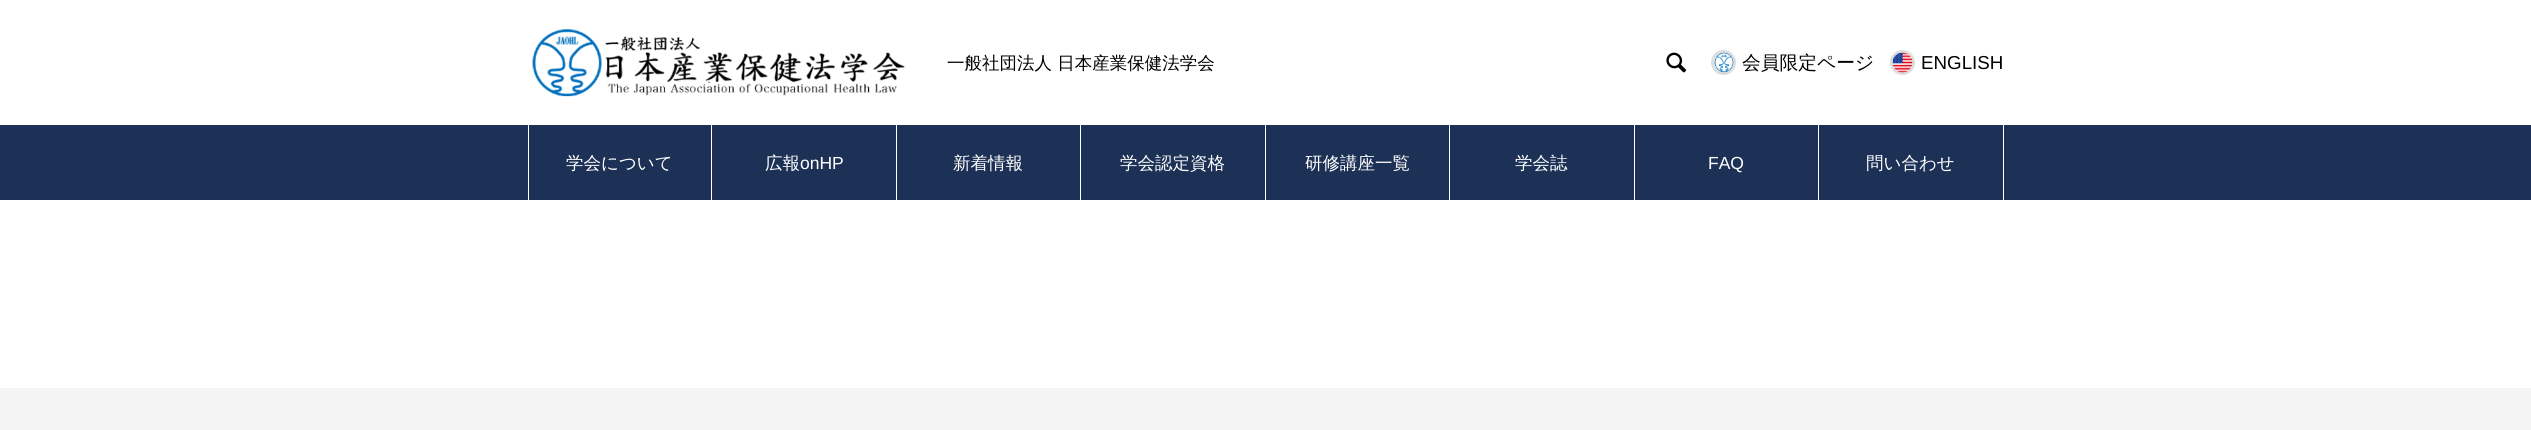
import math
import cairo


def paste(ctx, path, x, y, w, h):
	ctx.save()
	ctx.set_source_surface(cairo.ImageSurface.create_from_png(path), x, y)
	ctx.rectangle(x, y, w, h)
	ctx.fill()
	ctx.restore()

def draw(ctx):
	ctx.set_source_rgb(1, 1, 1)
	ctx.paint()
	paste(ctx, 'media/1.png', 532, 29, 373, 68)
	ctx.select_font_face('WenQuanYi Zen Hei Medium')
	ctx.set_font_size(17.5)
	ctx.set_source_rgb(0, 0, 0)
	ctx.move_to(947, 69)
	ctx.show_text('一般社団法人 日本産業保健法学会')
	paste(ctx, 'media/2.png', 1666, 52, 21, 21)
	ctx.arc(1723.5, 62.5, 11, 0, 2 * math.pi)
	ctx.set_source_rgb(0.867, 0.867, 0.867)
	ctx.set_line_width(3)
	ctx.stroke()
	paste(ctx, 'media/3.png', 1714, 52, 20, 21)
	ctx.set_font_size(18.75)
	ctx.set_source_rgb(0, 0, 0)
	ctx.move_to(1742, 69)
	ctx.show_text('会員限定ページ')
	ctx.new_path()
	ctx.arc(1902.5, 62.5, 11, 0, 2 * math.pi)
	ctx.set_source_rgb(0.867, 0.867, 0.867)
	ctx.stroke()
	paste(ctx, 'media/4.png', 1892, 52, 21, 21)
	ctx.select_font_face('Liberation Sans')
	ctx.set_source_rgb(0, 0, 0)
	ctx.move_to(1921, 69)
	ctx.show_text('ENGLISH')
	ctx.set_source_rgb(0.114, 0.192, 0.337)
	ctx.rectangle(0, 125, 2531, 75)
	ctx.fill()
	ctx.set_source_rgb(1, 1, 1)
	ctx.rectangle(528, 125, 1, 75)
	ctx.fill()
	ctx.select_font_face('WenQuanYi Zen Hei Medium')
	ctx.set_font_size(17.5)
	ctx.move_to(566, 169)
	ctx.show_text('学会について')
	ctx.rectangle(896, 125, 1, 75)
	ctx.fill()
	ctx.rectangle(711, 125, 1, 75)
	ctx.fill()
	ctx.move_to(765, 169)
	ctx.show_text('広報')
	ctx.select_font_face('Liberation Sans')
	ctx.move_to(800, 169)
	ctx.show_text('onHP')
	ctx.rectangle(1080, 125, 1, 75)
	ctx.fill()
	ctx.select_font_face('WenQuanYi Zen Hei Medium')
	ctx.move_to(953, 169)
	ctx.show_text('新着情報')
	ctx.rectangle(1265, 125, 1, 75)
	ctx.fill()
	ctx.move_to(1120, 169)
	ctx.show_text('学会認定資格')
	ctx.rectangle(1449, 125, 1, 75)
	ctx.fill()
	ctx.move_to(1305, 169)
	ctx.show_text('研修講座一覧')
	ctx.rectangle(1634, 125, 1, 75)
	ctx.fill()
	ctx.move_to(1515, 169)
	ctx.show_text('学会誌')
	ctx.select_font_face('Liberation Sans')
	ctx.move_to(1708, 169)
	ctx.show_text('FAQ')
	ctx.rectangle(2003, 125, 1, 75)
	ctx.fill()
	ctx.rectangle(1818, 125, 1, 75)
	ctx.fill()
	ctx.select_font_face('WenQuanYi Zen Hei Medium')
	ctx.move_to(1866, 169)
	ctx.show_text('問い合わせ')
	ctx.set_source_rgb(0.957, 0.957, 0.957)
	ctx.rectangle(0, 388, 2531, 42)
	ctx.fill()


surface = cairo.ImageSurface(cairo.FORMAT_RGB24, 2531, 430)
ctx = cairo.Context(surface)
options = cairo.FontOptions()
options.set_hint_metrics(cairo.HINT_METRICS_OFF)
options.set_hint_style(cairo.HINT_STYLE_NONE)
ctx.set_font_options(options)
ctx.set_miter_limit(4)
draw(ctx)
surface.write_to_png('image.png')
